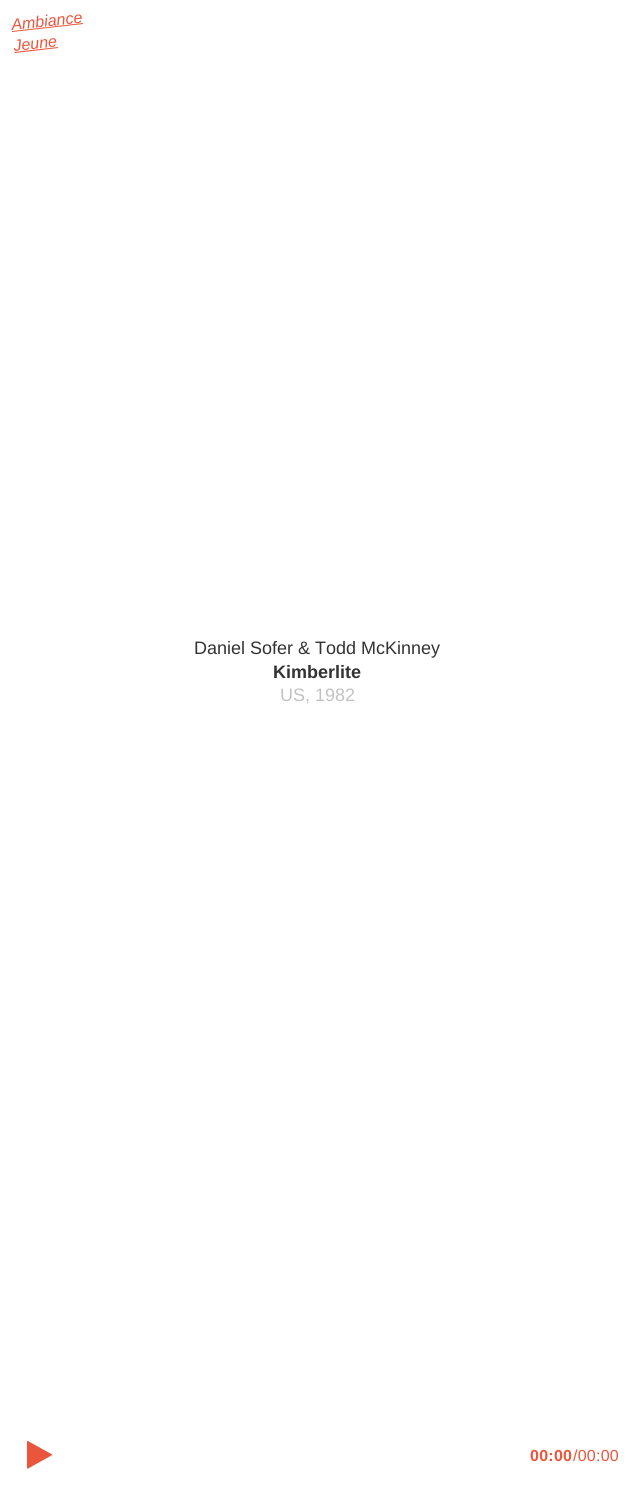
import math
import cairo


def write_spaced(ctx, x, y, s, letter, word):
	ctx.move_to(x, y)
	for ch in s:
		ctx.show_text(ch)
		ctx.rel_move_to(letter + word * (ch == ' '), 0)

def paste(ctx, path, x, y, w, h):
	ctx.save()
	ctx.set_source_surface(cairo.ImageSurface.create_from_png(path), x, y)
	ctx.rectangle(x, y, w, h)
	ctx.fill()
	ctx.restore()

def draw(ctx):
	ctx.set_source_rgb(1, 1, 1)
	ctx.paint()
	ctx.set_source_rgb(0.918, 0.337, 0.231)
	ctx.new_path()
	ctx.move_to(12, 31)
	ctx.line_to(83, 23)
	ctx.line_to(83, 24)
	ctx.line_to(12, 32)
	ctx.close_path()
	ctx.fill()
	ctx.select_font_face('Liberation Sans', cairo.FONT_SLANT_ITALIC)
	ctx.set_font_size(16)
	ctx.save()
	ctx.translate(12, 30)
	ctx.rotate(-6 * math.pi / 180)
	ctx.move_to(0, 0)
	ctx.show_text('Ambiance')
	ctx.restore()
	ctx.new_path()
	ctx.move_to(14, 52)
	ctx.line_to(58, 47)
	ctx.line_to(58, 48)
	ctx.line_to(15, 53)
	ctx.close_path()
	ctx.fill()
	ctx.save()
	ctx.translate(14, 51)
	ctx.rotate(-6 * math.pi / 180)
	ctx.move_to(0, 0)
	ctx.show_text('Jeune')
	ctx.restore()
	ctx.select_font_face('Liberation Sans')
	ctx.set_font_size(18)
	ctx.set_source_rgb(0.2, 0.2, 0.2)
	ctx.move_to(194, 654)
	ctx.show_text('Daniel Sofer & Todd McKinney')
	ctx.select_font_face('Liberation Sans', cairo.FONT_SLANT_NORMAL, cairo.FONT_WEIGHT_BOLD)
	ctx.move_to(273, 678)
	ctx.show_text('Kimberlite')
	ctx.select_font_face('Liberation Sans')
	ctx.set_source_rgb(0.761, 0.761, 0.761)
	ctx.move_to(280, 701)
	ctx.show_text('US, 1982')
	paste(ctx, 'media/1.png', 27, 1441, 26, 28)
	ctx.select_font_face('Liberation Sans', cairo.FONT_SLANT_NORMAL, cairo.FONT_WEIGHT_BOLD)
	ctx.set_font_size(16)
	ctx.set_source_rgb(0.918, 0.337, 0.231)
	write_spaced(ctx, 530, 1461, '00:00', 0.25, 0)
	ctx.select_font_face('Liberation Sans')
	write_spaced(ctx, 573, 1461, '/00:00', 0.25, 0)


surface = cairo.ImageSurface(cairo.FORMAT_RGB24, 635, 1489)
ctx = cairo.Context(surface)
options = cairo.FontOptions()
options.set_hint_metrics(cairo.HINT_METRICS_OFF)
options.set_hint_style(cairo.HINT_STYLE_NONE)
ctx.set_font_options(options)
ctx.set_miter_limit(4)
draw(ctx)
surface.write_to_png('image.png')
